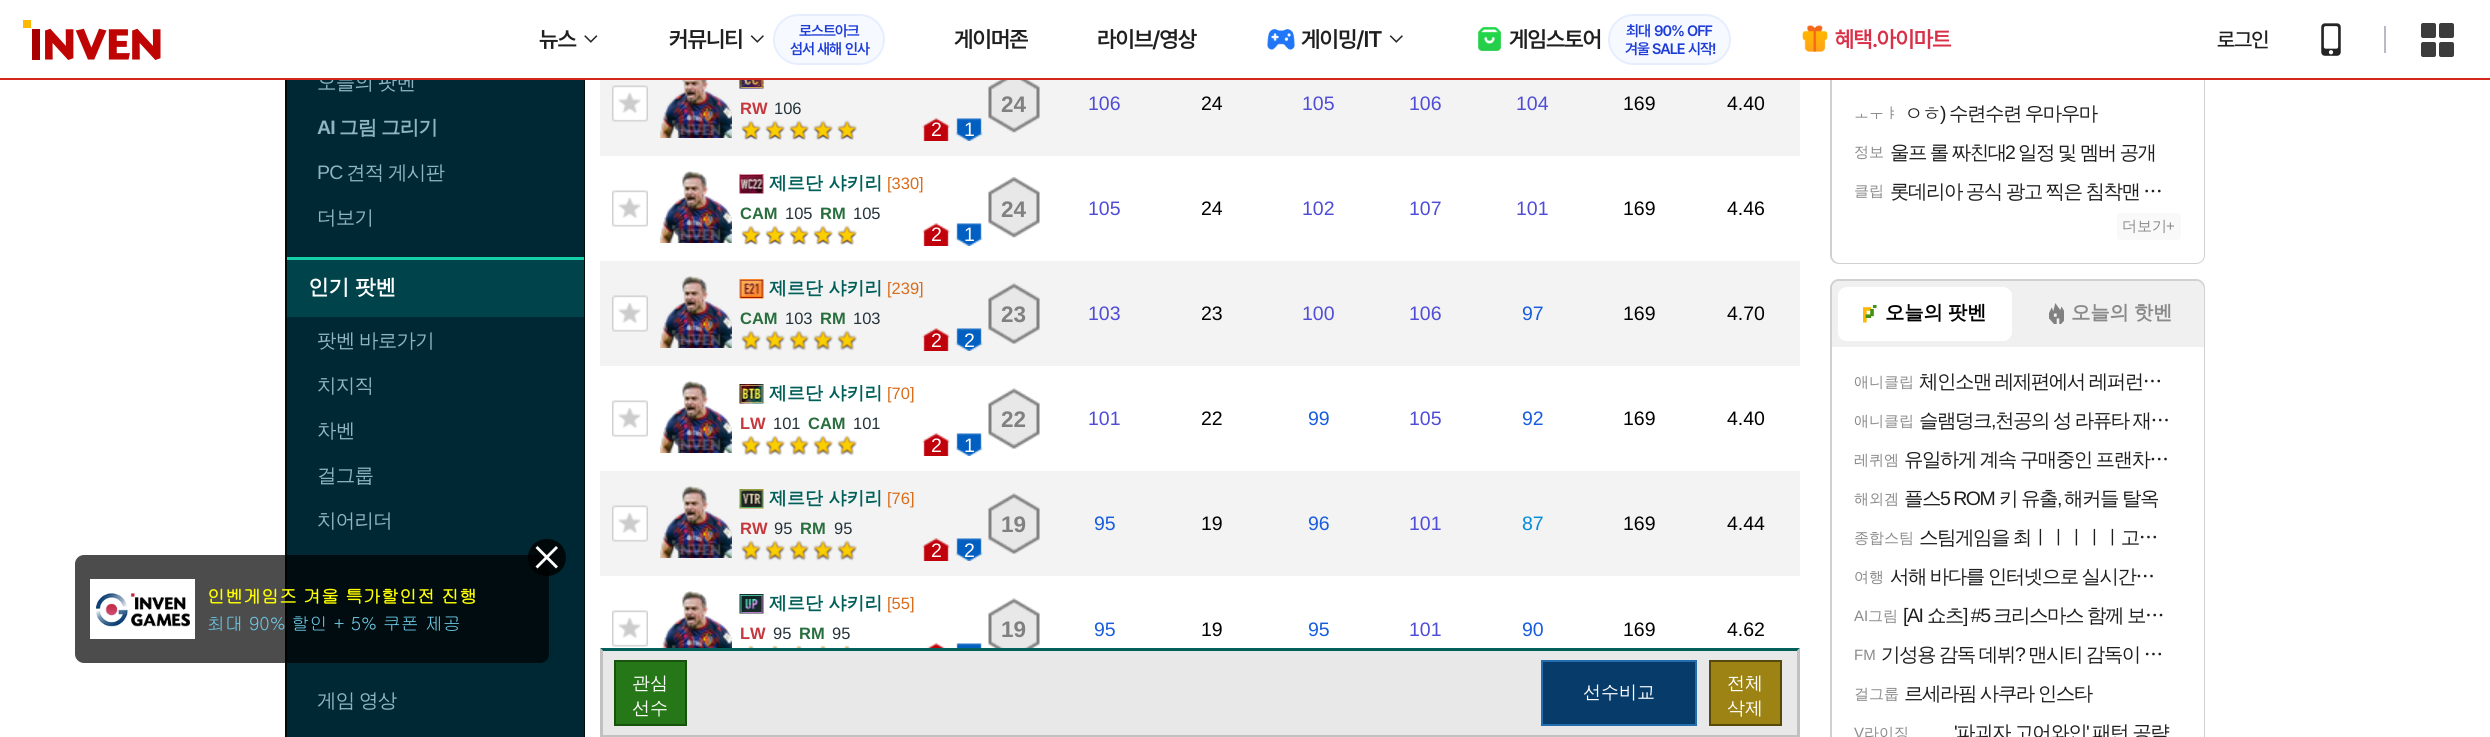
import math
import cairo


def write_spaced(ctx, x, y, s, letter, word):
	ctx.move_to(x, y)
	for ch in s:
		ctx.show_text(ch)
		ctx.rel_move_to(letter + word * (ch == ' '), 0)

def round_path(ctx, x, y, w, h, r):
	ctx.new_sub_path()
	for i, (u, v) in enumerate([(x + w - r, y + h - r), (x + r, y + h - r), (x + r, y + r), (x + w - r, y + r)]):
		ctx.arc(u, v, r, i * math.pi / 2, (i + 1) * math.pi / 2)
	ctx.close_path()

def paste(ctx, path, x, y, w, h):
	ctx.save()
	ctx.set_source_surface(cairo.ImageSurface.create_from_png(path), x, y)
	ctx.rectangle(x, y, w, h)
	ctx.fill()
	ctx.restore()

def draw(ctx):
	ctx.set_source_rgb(1, 1, 1)
	ctx.paint()
	ctx.set_source_rgb(0, 0.157, 0.204)
	ctx.rectangle(287, 80, 297, 657)
	ctx.fill()
	ctx.select_font_face('WenQuanYi Zen Hei Medium')
	ctx.set_font_size(19.5)
	ctx.set_source_rgb(0.557, 0.706, 0.749)
	write_spaced(ctx, 317, 89, '오늘의 팟벤', -0.75, -0.5)
	round_path(ctx, 1831, -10, 373, 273, 8)
	ctx.set_source_rgb(0.816, 0.816, 0.816)
	ctx.stroke()
	ctx.set_source_rgb(1, 1, 1)
	ctx.new_path()
	ctx.move_to(1832, 0)
	ctx.line_to(2204, 0)
	ctx.line_to(2204, 255)
	ctx.curve_to(2204, 259.5, 2200.5, 263, 2196, 263)
	ctx.line_to(1840, 263)
	ctx.curve_to(1835.5, 263, 1832, 259.5, 1832, 255)
	ctx.close_path()
	ctx.fill()
	ctx.rectangle(320, 0, 1885, 78)
	ctx.fill()
	ctx.set_source_rgb(0.827, 0.157, 0.106)
	ctx.rectangle(0, 78, 2490, 2)
	ctx.fill()
	paste(ctx, 'media/1.png', 23, 20, 138, 40)
	ctx.select_font_face('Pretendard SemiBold')
	ctx.set_font_size(22.5)
	ctx.set_source_rgb(0.122, 0.122, 0.122)
	write_spaced(ctx, 539, 47, '뉴스', -1, 0)
	paste(ctx, 'media/2.png', 584, 35, 14, 8)
	write_spaced(ctx, 669, 47, '커뮤니티', -1, 0)
	paste(ctx, 'media/3.png', 750, 35, 14, 8)
	ctx.set_source_rgb(0.961, 0.976, 1)
	round_path(ctx, 774, 15, 110, 49, 24.5)
	ctx.fill_preserve()
	ctx.set_source_rgb(0.902, 0.933, 0.996)
	ctx.stroke()
	ctx.set_font_size(15)
	ctx.set_source_rgb(0.118, 0.239, 0.843)
	for x, y, s in [
		(799, 36, '로스트아크'),
		(790, 54, '섬서'),
		(817, 54, '새해'),
		(845, 54, '인사'),
	]:
		write_spaced(ctx, x, y, s, -1, 0)
	ctx.set_font_size(22.5)
	ctx.set_source_rgb(0.122, 0.122, 0.122)
	write_spaced(ctx, 954, 47, '게이머존', -1, 0)
	write_spaced(ctx, 1097, 47, '라이브/영상', -1, 0)
	paste(ctx, 'media/4.png', 1267, 29, 28, 21)
	write_spaced(ctx, 1301, 47, '게이밍/IT', -1, 0)
	paste(ctx, 'media/3.png', 1389, 35, 14, 8)
	paste(ctx, 'media/5.png', 1478, 27, 23, 24)
	write_spaced(ctx, 1509, 47, '게임스토어', -1, 0)
	ctx.set_source_rgb(0.961, 0.976, 1)
	round_path(ctx, 1609, 15, 121, 49, 24.5)
	ctx.fill_preserve()
	ctx.set_source_rgb(0.902, 0.933, 0.996)
	ctx.stroke()
	ctx.set_font_size(15)
	ctx.set_source_rgb(0.118, 0.239, 0.843)
	for x, y, s in [
		(1626, 36, '최대'),
		(1654, 36, '90%'),
		(1687, 36, 'OFF'),
		(1625, 54, '겨울'),
		(1652, 54, 'SALE'),
		(1688, 54, '시작!'),
	]:
		write_spaced(ctx, x, y, s, -1, 0)
	paste(ctx, 'media/6.png', 1802, 25, 26, 27)
	ctx.set_font_size(22.5)
	ctx.set_source_rgb(0.847, 0.188, 0.286)
	write_spaced(ctx, 1835, 47, '혜택.아이마트', -1, 0)
	ctx.select_font_face('Pretendard Medium')
	ctx.set_font_size(21)
	ctx.set_source_rgb(0.122, 0.122, 0.122)
	write_spaced(ctx, 2217, 47, '로그인', -1, 0)
	paste(ctx, 'media/7.png', 2321, 23, 20, 33)
	ctx.set_source_rgb(0.235, 0.235, 0.235)
	round_path(ctx, 2421, 23, 15, 15, 2)
	ctx.fill()
	round_path(ctx, 2421, 42, 15, 15, 2)
	ctx.fill()
	round_path(ctx, 2439, 23, 15, 15, 2)
	ctx.fill()
	round_path(ctx, 2439, 42, 15, 15, 2)
	ctx.fill()
	ctx.set_source_rgb(0.729, 0.729, 0.769)
	ctx.rectangle(2384, 26, 2, 27)
	ctx.fill()
	ctx.set_source_rgb(0, 0.051, 0.047)
	ctx.rectangle(584, 80, 1, 657)
	ctx.rectangle(285, 80, 2, 657)
	ctx.fill()
	ctx.select_font_face('Liberation Sans', cairo.FONT_SLANT_NORMAL, cairo.FONT_WEIGHT_BOLD)
	ctx.set_font_size(19.5)
	ctx.set_source_rgb(0.557, 0.706, 0.749)
	write_spaced(ctx, 317, 134, 'AI', -0.75, 0)
	ctx.select_font_face('WenQuanYi Zen Hei', cairo.FONT_SLANT_NORMAL, cairo.FONT_WEIGHT_BOLD)
	write_spaced(ctx, 339, 134, '그림 그리기', -0.75, -0.5)
	ctx.select_font_face('Liberation Sans')
	write_spaced(ctx, 317, 179, 'PC', -0.75, 0)
	ctx.select_font_face('WenQuanYi Zen Hei Medium')
	write_spaced(ctx, 346, 179, '견적 게시판', -0.75, -0.5)
	write_spaced(ctx, 317, 224, '더보기', -0.75, 0)
	ctx.set_source_rgb(0, 0.263, 0.294)
	ctx.rectangle(287, 260, 297, 57)
	ctx.fill()
	ctx.set_source_rgb(0.082, 0.82, 0.663)
	ctx.rectangle(287, 257, 297, 3)
	ctx.fill()
	ctx.select_font_face('WenQuanYi Zen Hei', cairo.FONT_SLANT_NORMAL, cairo.FONT_WEIGHT_BOLD)
	ctx.set_font_size(21)
	ctx.set_source_rgb(1, 1, 1)
	write_spaced(ctx, 308, 294, '인기 팟벤', -0.5, 0)
	ctx.select_font_face('WenQuanYi Zen Hei Medium')
	ctx.set_font_size(19.5)
	ctx.set_source_rgb(0.557, 0.706, 0.749)
	write_spaced(ctx, 317, 347, '팟벤 바로가기', -0.75, -0.5)
	for x, y, s in [
		(317, 392, '치지직'),
		(317, 437, '차벤'),
		(317, 482, '걸그룹'),
		(317, 527, '치어리더'),
	]:
		write_spaced(ctx, x, y, s, -0.75, 0)
	write_spaced(ctx, 317, 707, '게임 영상', -0.75, -0.5)
	ctx.set_source_rgb(0.953, 0.953, 0.953)
	ctx.rectangle(600, 80, 1200, 76)
	ctx.fill()
	paste(ctx, 'media/8.png', 612, 85, 36, 37)
	paste(ctx, 'media/9.png', 660, 80, 72, 58)
	paste(ctx, 'media/10.png', 739, 80, 25, 9)
	ctx.select_font_face('Liberation Sans', cairo.FONT_SLANT_NORMAL, cairo.FONT_WEIGHT_BOLD)
	ctx.set_font_size(16.5)
	ctx.set_source_rgb(0.769, 0.22, 0.243)
	ctx.move_to(740, 114)
	ctx.show_text('RW')
	ctx.select_font_face('Liberation Sans')
	ctx.set_source_rgb(0.141, 0.196, 0.231)
	ctx.move_to(774, 114)
	ctx.show_text('106')
	paste(ctx, 'media/11.png', 988, 80, 52, 53)
	ctx.select_font_face('Liberation Sans', cairo.FONT_SLANT_NORMAL, cairo.FONT_WEIGHT_BOLD)
	ctx.set_font_size(22.5)
	ctx.set_source_rgb(0.502, 0.502, 0.502)
	ctx.move_to(1001, 112)
	ctx.show_text('24')
	paste(ctx, 'media/12.png', 741, 120, 20, 20)
	paste(ctx, 'media/12.png', 765, 120, 20, 20)
	paste(ctx, 'media/12.png', 789, 120, 20, 20)
	paste(ctx, 'media/12.png', 813, 120, 20, 20)
	paste(ctx, 'media/12.png', 837, 120, 20, 20)
	paste(ctx, 'media/13.png', 922, 118, 28, 23)
	ctx.select_font_face('Liberation Sans')
	ctx.set_font_size(19.5)
	ctx.set_source_rgb(1, 1, 1)
	ctx.move_to(931, 136)
	ctx.show_text('2')
	paste(ctx, 'media/14.png', 955, 118, 28, 23)
	ctx.move_to(964, 136)
	ctx.show_text('1')
	ctx.set_source_rgb(0.31, 0.298, 0.839)
	ctx.move_to(1088, 110)
	ctx.show_text('106')
	ctx.set_source_rgb(0, 0, 0)
	ctx.move_to(1201, 110)
	ctx.show_text('24')
	ctx.set_source_rgb(0.31, 0.298, 0.839)
	for x, y, s in [
		(1302, 110, '105'),
		(1409, 110, '106'),
		(1516, 110, '104'),
	]:
		ctx.move_to(x, y)
		ctx.show_text(s)
	ctx.set_source_rgb(0, 0, 0)
	ctx.move_to(1623, 110)
	ctx.show_text('169')
	ctx.move_to(1727, 110)
	ctx.show_text('4.40')
	paste(ctx, 'media/15.png', 612, 190, 36, 37)
	paste(ctx, 'media/16.png', 660, 171, 72, 72)
	paste(ctx, 'media/17.png', 739, 174, 25, 20)
	ctx.select_font_face('WenQuanYi Zen Hei', cairo.FONT_SLANT_NORMAL, cairo.FONT_WEIGHT_BOLD)
	ctx.set_font_size(18)
	ctx.set_source_rgb(0, 0.373, 0.349)
	ctx.move_to(769, 189)
	ctx.show_text('제르단 샤키리')
	ctx.select_font_face('Liberation Sans')
	ctx.set_font_size(16.5)
	ctx.set_source_rgb(0.855, 0.424, 0.106)
	ctx.move_to(887, 189)
	ctx.show_text('[330]')
	ctx.select_font_face('Liberation Sans', cairo.FONT_SLANT_NORMAL, cairo.FONT_WEIGHT_BOLD)
	ctx.set_source_rgb(0.161, 0.435, 0.243)
	ctx.move_to(740, 219)
	ctx.show_text('CAM')
	ctx.select_font_face('Liberation Sans')
	ctx.set_source_rgb(0.141, 0.196, 0.231)
	ctx.move_to(785, 219)
	ctx.show_text('105')
	ctx.select_font_face('Liberation Sans', cairo.FONT_SLANT_NORMAL, cairo.FONT_WEIGHT_BOLD)
	ctx.set_source_rgb(0.161, 0.435, 0.243)
	ctx.move_to(820, 219)
	ctx.show_text('RM')
	ctx.select_font_face('Liberation Sans')
	ctx.set_source_rgb(0.141, 0.196, 0.231)
	ctx.move_to(853, 219)
	ctx.show_text('105')
	paste(ctx, 'media/18.png', 988, 177, 52, 61)
	ctx.select_font_face('Liberation Sans', cairo.FONT_SLANT_NORMAL, cairo.FONT_WEIGHT_BOLD)
	ctx.set_font_size(22.5)
	ctx.set_source_rgb(0.502, 0.502, 0.502)
	ctx.move_to(1001, 217)
	ctx.show_text('24')
	paste(ctx, 'media/19.png', 741, 225, 20, 20)
	paste(ctx, 'media/19.png', 765, 225, 20, 20)
	paste(ctx, 'media/19.png', 789, 225, 20, 20)
	paste(ctx, 'media/19.png', 813, 225, 20, 20)
	paste(ctx, 'media/19.png', 837, 225, 20, 20)
	paste(ctx, 'media/20.png', 922, 223, 28, 23)
	ctx.select_font_face('Liberation Sans')
	ctx.set_font_size(19.5)
	ctx.set_source_rgb(1, 1, 1)
	ctx.move_to(931, 241)
	ctx.show_text('2')
	paste(ctx, 'media/21.png', 955, 223, 28, 23)
	ctx.move_to(964, 241)
	ctx.show_text('1')
	ctx.set_source_rgb(0.31, 0.298, 0.839)
	ctx.move_to(1088, 215)
	ctx.show_text('105')
	ctx.set_source_rgb(0, 0, 0)
	ctx.move_to(1201, 215)
	ctx.show_text('24')
	ctx.set_source_rgb(0.31, 0.298, 0.839)
	for x, y, s in [
		(1302, 215, '102'),
		(1409, 215, '107'),
		(1516, 215, '101'),
	]:
		ctx.move_to(x, y)
		ctx.show_text(s)
	ctx.set_source_rgb(0, 0, 0)
	ctx.move_to(1623, 215)
	ctx.show_text('169')
	ctx.move_to(1727, 215)
	ctx.show_text('4.46')
	ctx.set_source_rgb(0.953, 0.953, 0.953)
	ctx.rectangle(600, 261, 1200, 105)
	ctx.fill()
	paste(ctx, 'media/8.png', 612, 295, 36, 37)
	paste(ctx, 'media/22.png', 660, 276, 72, 72)
	paste(ctx, 'media/23.png', 739, 279, 25, 20)
	ctx.select_font_face('WenQuanYi Zen Hei', cairo.FONT_SLANT_NORMAL, cairo.FONT_WEIGHT_BOLD)
	ctx.set_font_size(18)
	ctx.set_source_rgb(0, 0.373, 0.349)
	ctx.move_to(769, 294)
	ctx.show_text('제르단 샤키리')
	ctx.select_font_face('Liberation Sans')
	ctx.set_font_size(16.5)
	ctx.set_source_rgb(0.855, 0.424, 0.106)
	ctx.move_to(887, 294)
	ctx.show_text('[239]')
	ctx.select_font_face('Liberation Sans', cairo.FONT_SLANT_NORMAL, cairo.FONT_WEIGHT_BOLD)
	ctx.set_source_rgb(0.161, 0.435, 0.243)
	ctx.move_to(740, 324)
	ctx.show_text('CAM')
	ctx.select_font_face('Liberation Sans')
	ctx.set_source_rgb(0.141, 0.196, 0.231)
	ctx.move_to(785, 324)
	ctx.show_text('103')
	ctx.select_font_face('Liberation Sans', cairo.FONT_SLANT_NORMAL, cairo.FONT_WEIGHT_BOLD)
	ctx.set_source_rgb(0.161, 0.435, 0.243)
	ctx.move_to(820, 324)
	ctx.show_text('RM')
	ctx.select_font_face('Liberation Sans')
	ctx.set_source_rgb(0.141, 0.196, 0.231)
	ctx.move_to(853, 324)
	ctx.show_text('103')
	paste(ctx, 'media/24.png', 988, 283, 52, 61)
	ctx.select_font_face('Liberation Sans', cairo.FONT_SLANT_NORMAL, cairo.FONT_WEIGHT_BOLD)
	ctx.set_font_size(22.5)
	ctx.set_source_rgb(0.502, 0.502, 0.502)
	ctx.move_to(1001, 322)
	ctx.show_text('23')
	paste(ctx, 'media/25.png', 741, 330, 20, 21)
	paste(ctx, 'media/25.png', 765, 330, 20, 21)
	paste(ctx, 'media/25.png', 789, 330, 20, 21)
	paste(ctx, 'media/25.png', 813, 330, 20, 21)
	paste(ctx, 'media/25.png', 837, 330, 20, 21)
	paste(ctx, 'media/13.png', 922, 328, 28, 23)
	ctx.select_font_face('Liberation Sans')
	ctx.set_font_size(19.5)
	ctx.set_source_rgb(1, 1, 1)
	ctx.move_to(931, 347)
	ctx.show_text('2')
	paste(ctx, 'media/14.png', 955, 328, 28, 23)
	ctx.move_to(964, 347)
	ctx.show_text('2')
	ctx.set_source_rgb(0.31, 0.298, 0.839)
	ctx.move_to(1088, 320)
	ctx.show_text('103')
	ctx.set_source_rgb(0, 0, 0)
	ctx.move_to(1201, 320)
	ctx.show_text('23')
	ctx.set_source_rgb(0.31, 0.298, 0.839)
	ctx.move_to(1302, 320)
	ctx.show_text('100')
	ctx.move_to(1409, 320)
	ctx.show_text('106')
	ctx.set_source_rgb(0.09, 0.365, 0.871)
	ctx.move_to(1522, 320)
	ctx.show_text('97')
	ctx.set_source_rgb(0, 0, 0)
	ctx.move_to(1623, 320)
	ctx.show_text('169')
	ctx.move_to(1727, 320)
	ctx.show_text('4.70')
	paste(ctx, 'media/15.png', 612, 400, 36, 37)
	paste(ctx, 'media/16.png', 660, 381, 72, 72)
	paste(ctx, 'media/26.png', 739, 384, 25, 20)
	ctx.select_font_face('WenQuanYi Zen Hei', cairo.FONT_SLANT_NORMAL, cairo.FONT_WEIGHT_BOLD)
	ctx.set_font_size(18)
	ctx.set_source_rgb(0, 0.373, 0.349)
	ctx.move_to(769, 399)
	ctx.show_text('제르단 샤키리')
	ctx.select_font_face('Liberation Sans')
	ctx.set_font_size(16.5)
	ctx.set_source_rgb(0.855, 0.424, 0.106)
	ctx.move_to(887, 399)
	ctx.show_text('[70]')
	ctx.select_font_face('Liberation Sans', cairo.FONT_SLANT_NORMAL, cairo.FONT_WEIGHT_BOLD)
	ctx.set_source_rgb(0.769, 0.22, 0.243)
	ctx.move_to(740, 429)
	ctx.show_text('LW')
	ctx.select_font_face('Liberation Sans')
	ctx.set_source_rgb(0.141, 0.196, 0.231)
	ctx.move_to(773, 429)
	ctx.show_text('101')
	ctx.select_font_face('Liberation Sans', cairo.FONT_SLANT_NORMAL, cairo.FONT_WEIGHT_BOLD)
	ctx.set_source_rgb(0.161, 0.435, 0.243)
	ctx.move_to(808, 429)
	ctx.show_text('CAM')
	ctx.select_font_face('Liberation Sans')
	ctx.set_source_rgb(0.141, 0.196, 0.231)
	ctx.move_to(853, 429)
	ctx.show_text('101')
	paste(ctx, 'media/27.png', 988, 388, 52, 61)
	ctx.select_font_face('Liberation Sans', cairo.FONT_SLANT_NORMAL, cairo.FONT_WEIGHT_BOLD)
	ctx.set_font_size(22.5)
	ctx.set_source_rgb(0.502, 0.502, 0.502)
	ctx.move_to(1001, 427)
	ctx.show_text('22')
	paste(ctx, 'media/28.png', 741, 435, 20, 21)
	paste(ctx, 'media/28.png', 765, 435, 20, 21)
	paste(ctx, 'media/28.png', 789, 435, 20, 21)
	paste(ctx, 'media/28.png', 813, 435, 20, 21)
	paste(ctx, 'media/28.png', 837, 435, 20, 21)
	paste(ctx, 'media/20.png', 922, 433, 28, 23)
	ctx.select_font_face('Liberation Sans')
	ctx.set_font_size(19.5)
	ctx.set_source_rgb(1, 1, 1)
	ctx.move_to(931, 452)
	ctx.show_text('2')
	paste(ctx, 'media/21.png', 955, 433, 28, 23)
	ctx.move_to(964, 452)
	ctx.show_text('1')
	ctx.set_source_rgb(0.31, 0.298, 0.839)
	ctx.move_to(1088, 425)
	ctx.show_text('101')
	ctx.set_source_rgb(0, 0, 0)
	ctx.move_to(1201, 425)
	ctx.show_text('22')
	ctx.set_source_rgb(0.09, 0.365, 0.871)
	ctx.move_to(1308, 425)
	ctx.show_text('99')
	ctx.set_source_rgb(0.31, 0.298, 0.839)
	ctx.move_to(1409, 425)
	ctx.show_text('105')
	ctx.set_source_rgb(0.09, 0.365, 0.871)
	ctx.move_to(1522, 425)
	ctx.show_text('92')
	ctx.set_source_rgb(0, 0, 0)
	ctx.move_to(1623, 425)
	ctx.show_text('169')
	ctx.move_to(1727, 425)
	ctx.show_text('4.40')
	ctx.set_source_rgb(0.953, 0.953, 0.953)
	ctx.rectangle(600, 471, 1200, 105)
	ctx.fill()
	paste(ctx, 'media/8.png', 612, 505, 36, 37)
	paste(ctx, 'media/22.png', 660, 486, 72, 72)
	paste(ctx, 'media/29.png', 739, 489, 25, 20)
	ctx.select_font_face('WenQuanYi Zen Hei', cairo.FONT_SLANT_NORMAL, cairo.FONT_WEIGHT_BOLD)
	ctx.set_font_size(18)
	ctx.set_source_rgb(0, 0.373, 0.349)
	ctx.move_to(769, 504)
	ctx.show_text('제르단 샤키리')
	ctx.select_font_face('Liberation Sans')
	ctx.set_font_size(16.5)
	ctx.set_source_rgb(0.855, 0.424, 0.106)
	ctx.move_to(887, 504)
	ctx.show_text('[76]')
	ctx.select_font_face('Liberation Sans', cairo.FONT_SLANT_NORMAL, cairo.FONT_WEIGHT_BOLD)
	ctx.set_source_rgb(0.769, 0.22, 0.243)
	ctx.move_to(740, 534)
	ctx.show_text('RW')
	ctx.select_font_face('Liberation Sans')
	ctx.set_source_rgb(0.141, 0.196, 0.231)
	ctx.move_to(774, 534)
	ctx.show_text('95')
	ctx.select_font_face('Liberation Sans', cairo.FONT_SLANT_NORMAL, cairo.FONT_WEIGHT_BOLD)
	ctx.set_source_rgb(0.161, 0.435, 0.243)
	ctx.move_to(800, 534)
	ctx.show_text('RM')
	ctx.select_font_face('Liberation Sans')
	ctx.set_source_rgb(0.141, 0.196, 0.231)
	ctx.move_to(834, 534)
	ctx.show_text('95')
	paste(ctx, 'media/24.png', 988, 493, 52, 61)
	ctx.select_font_face('Liberation Sans', cairo.FONT_SLANT_NORMAL, cairo.FONT_WEIGHT_BOLD)
	ctx.set_font_size(22.5)
	ctx.set_source_rgb(0.502, 0.502, 0.502)
	ctx.move_to(1001, 532)
	ctx.show_text('19')
	paste(ctx, 'media/25.png', 741, 540, 20, 21)
	paste(ctx, 'media/25.png', 765, 540, 20, 21)
	paste(ctx, 'media/25.png', 789, 540, 20, 21)
	paste(ctx, 'media/25.png', 813, 540, 20, 21)
	paste(ctx, 'media/25.png', 837, 540, 20, 21)
	paste(ctx, 'media/13.png', 922, 538, 28, 23)
	ctx.select_font_face('Liberation Sans')
	ctx.set_font_size(19.5)
	ctx.set_source_rgb(1, 1, 1)
	ctx.move_to(931, 557)
	ctx.show_text('2')
	paste(ctx, 'media/14.png', 955, 538, 28, 23)
	ctx.move_to(964, 557)
	ctx.show_text('2')
	ctx.set_source_rgb(0.09, 0.365, 0.871)
	ctx.move_to(1094, 530)
	ctx.show_text('95')
	ctx.set_source_rgb(0, 0, 0)
	ctx.move_to(1201, 530)
	ctx.show_text('19')
	ctx.set_source_rgb(0.09, 0.365, 0.871)
	ctx.move_to(1308, 530)
	ctx.show_text('96')
	ctx.set_source_rgb(0.31, 0.298, 0.839)
	ctx.move_to(1409, 530)
	ctx.show_text('101')
	ctx.set_source_rgb(0.016, 0.545, 0.851)
	ctx.move_to(1522, 530)
	ctx.show_text('87')
	ctx.set_source_rgb(0, 0, 0)
	ctx.move_to(1623, 530)
	ctx.show_text('169')
	ctx.move_to(1727, 530)
	ctx.show_text('4.44')
	paste(ctx, 'media/15.png', 612, 610, 36, 37)
	paste(ctx, 'media/30.png', 661, 591, 71, 57)
	paste(ctx, 'media/31.png', 739, 594, 25, 20)
	ctx.select_font_face('WenQuanYi Zen Hei', cairo.FONT_SLANT_NORMAL, cairo.FONT_WEIGHT_BOLD)
	ctx.set_font_size(18)
	ctx.set_source_rgb(0, 0.373, 0.349)
	ctx.move_to(769, 609)
	ctx.show_text('제르단 샤키리')
	ctx.select_font_face('Liberation Sans')
	ctx.set_font_size(16.5)
	ctx.set_source_rgb(0.855, 0.424, 0.106)
	ctx.move_to(887, 609)
	ctx.show_text('[55]')
	ctx.select_font_face('Liberation Sans', cairo.FONT_SLANT_NORMAL, cairo.FONT_WEIGHT_BOLD)
	ctx.set_source_rgb(0.769, 0.22, 0.243)
	ctx.move_to(740, 639)
	ctx.show_text('LW')
	ctx.select_font_face('Liberation Sans')
	ctx.set_source_rgb(0.141, 0.196, 0.231)
	ctx.move_to(773, 639)
	ctx.show_text('95')
	ctx.select_font_face('Liberation Sans', cairo.FONT_SLANT_NORMAL, cairo.FONT_WEIGHT_BOLD)
	ctx.set_source_rgb(0.161, 0.435, 0.243)
	ctx.move_to(799, 639)
	ctx.show_text('RM')
	ctx.select_font_face('Liberation Sans')
	ctx.set_source_rgb(0.141, 0.196, 0.231)
	ctx.move_to(832, 639)
	ctx.show_text('95')
	paste(ctx, 'media/32.png', 988, 598, 52, 50)
	ctx.select_font_face('Liberation Sans', cairo.FONT_SLANT_NORMAL, cairo.FONT_WEIGHT_BOLD)
	ctx.set_font_size(22.5)
	ctx.set_source_rgb(0.502, 0.502, 0.502)
	ctx.move_to(1001, 637)
	ctx.show_text('19')
	paste(ctx, 'media/33.png', 748, 645, 6, 3)
	paste(ctx, 'media/33.png', 772, 645, 6, 3)
	paste(ctx, 'media/33.png', 796, 645, 6, 3)
	paste(ctx, 'media/33.png', 820, 645, 6, 3)
	paste(ctx, 'media/33.png', 844, 645, 6, 3)
	paste(ctx, 'media/34.png', 927, 643, 19, 5)
	paste(ctx, 'media/35.png', 956, 643, 26, 5)
	ctx.select_font_face('Liberation Sans')
	ctx.set_font_size(19.5)
	ctx.set_source_rgb(0.09, 0.365, 0.871)
	ctx.move_to(1094, 636)
	ctx.show_text('95')
	ctx.set_source_rgb(0, 0, 0)
	ctx.move_to(1201, 636)
	ctx.show_text('19')
	ctx.set_source_rgb(0.09, 0.365, 0.871)
	ctx.move_to(1308, 636)
	ctx.show_text('95')
	ctx.set_source_rgb(0.31, 0.298, 0.839)
	ctx.move_to(1409, 636)
	ctx.show_text('101')
	ctx.set_source_rgb(0.09, 0.365, 0.871)
	ctx.move_to(1522, 636)
	ctx.show_text('90')
	ctx.set_source_rgb(0, 0, 0)
	ctx.move_to(1623, 636)
	ctx.show_text('169')
	ctx.move_to(1727, 636)
	ctx.show_text('4.62')
	ctx.set_source_rgb(0.91, 0.91, 0.91)
	ctx.rectangle(600, 648, 1200, 87)
	ctx.fill()
	ctx.set_source_rgb(0, 0.373, 0.349)
	ctx.new_path()
	ctx.move_to(600, 648)
	ctx.line_to(1800, 648)
	ctx.line_to(1797, 651)
	ctx.line_to(603, 651)
	ctx.close_path()
	ctx.fill()
	ctx.set_source_rgb(0.757, 0.757, 0.757)
	ctx.new_path()
	ctx.move_to(1800, 648)
	ctx.line_to(1800, 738)
	ctx.line_to(1797, 735)
	ctx.line_to(1797, 651)
	ctx.close_path()
	ctx.fill()
	ctx.rectangle(600, 735, 1200, 2)
	ctx.fill()
	ctx.new_path()
	ctx.move_to(600, 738)
	ctx.line_to(600, 648)
	ctx.line_to(603, 651)
	ctx.line_to(603, 735)
	ctx.close_path()
	ctx.fill()
	ctx.set_source_rgb(0.149, 0.467, 0.09)
	ctx.rectangle(615, 661, 71, 64)
	ctx.fill_preserve()
	ctx.set_source_rgb(0.094, 0.325, 0.051)
	ctx.stroke()
	ctx.select_font_face('WenQuanYi Zen Hei Medium')
	ctx.set_font_size(18)
	ctx.set_source_rgb(1, 1, 1)
	ctx.move_to(632, 689)
	ctx.show_text('관심')
	ctx.move_to(632, 714)
	ctx.show_text('선수')
	ctx.set_source_rgb(0.027, 0.231, 0.416)
	ctx.rectangle(1542, 661, 154, 64)
	ctx.fill_preserve()
	ctx.set_source_rgb(0.137, 0.431, 0.682)
	ctx.stroke()
	ctx.set_source_rgb(1, 1, 1)
	ctx.move_to(1583, 698)
	ctx.show_text('선수비교')
	ctx.set_source_rgb(0.612, 0.514, 0.082)
	ctx.rectangle(1710, 661, 71, 64)
	ctx.fill_preserve()
	ctx.set_source_rgb(0.341, 0.282, 0.047)
	ctx.stroke()
	ctx.set_source_rgb(1, 1, 1)
	ctx.move_to(1727, 689)
	ctx.show_text('전체')
	ctx.move_to(1727, 714)
	ctx.show_text('삭제')
	ctx.set_font_size(15)
	ctx.set_source_rgb(0.541, 0.541, 0.541)
	ctx.move_to(1854, 118)
	ctx.show_text('ㅗㅜㅑ')
	ctx.set_font_size(19.5)
	ctx.set_source_rgb(0.122, 0.122, 0.122)
	write_spaced(ctx, 1904, 120, 'ㅇㅎ', -1.5, 0)
	ctx.select_font_face('Liberation Sans')
	write_spaced(ctx, 1940, 120, ')', -1.5, 0)
	ctx.select_font_face('WenQuanYi Zen Hei Medium')
	write_spaced(ctx, 1949, 120, '수련수련 우마우마', -1.5, -0.5)
	ctx.set_font_size(15)
	ctx.set_source_rgb(0.541, 0.541, 0.541)
	ctx.move_to(1854, 157)
	ctx.show_text('정보')
	ctx.set_font_size(19.5)
	ctx.set_source_rgb(0.122, 0.122, 0.122)
	write_spaced(ctx, 1890, 159, '울프 롤 짜친대', -1.5, -0.5)
	ctx.select_font_face('Liberation Sans')
	write_spaced(ctx, 2005, 159, '2', -1.5, 0)
	ctx.select_font_face('WenQuanYi Zen Hei Medium')
	write_spaced(ctx, 2018, 159, '일정 및 멤버 공개', -1.5, -0.5)
	ctx.set_font_size(15)
	ctx.set_source_rgb(0.541, 0.541, 0.541)
	ctx.move_to(1854, 196)
	ctx.show_text('클립')
	ctx.set_font_size(19.5)
	ctx.set_source_rgb(0.122, 0.122, 0.122)
	write_spaced(ctx, 1890, 198, '롯데리아 공식 광고 찍은 침착맨 …', -1.5, -0.5)
	ctx.set_source_rgb(0.973, 0.973, 0.973)
	round_path(ctx, 2117, 213, 64, 27, 3)
	ctx.fill()
	ctx.set_font_size(15)
	ctx.set_source_rgb(0.541, 0.541, 0.541)
	ctx.move_to(2122, 231)
	ctx.show_text('더보기')
	ctx.select_font_face('Liberation Sans')
	ctx.move_to(2166, 231)
	ctx.show_text('+')
	ctx.set_source_rgb(0.973, 0.973, 0.973)
	round_path(ctx, 1831, 280, 373, 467, 8)
	ctx.fill_preserve()
	ctx.set_source_rgb(0.816, 0.816, 0.816)
	ctx.stroke()
	ctx.set_source_rgb(0.941, 0.941, 0.941)
	ctx.new_path()
	ctx.move_to(1840, 281)
	ctx.line_to(2196, 281)
	ctx.curve_to(2200.5, 281, 2204, 284.5, 2204, 289)
	ctx.line_to(2204, 347)
	ctx.line_to(1832, 347)
	ctx.line_to(1832, 289)
	ctx.curve_to(1832, 284.5, 1835.5, 281, 1840, 281)
	ctx.close_path()
	ctx.fill()
	ctx.set_source_rgb(1, 1, 1)
	round_path(ctx, 1838, 287, 174, 54, 9)
	ctx.fill()
	paste(ctx, 'media/36.png', 1863, 305, 14, 18)
	ctx.select_font_face('WenQuanYi Zen Hei', cairo.FONT_SLANT_NORMAL, cairo.FONT_WEIGHT_BOLD)
	ctx.set_font_size(19.5)
	ctx.set_source_rgb(0, 0, 0)
	write_spaced(ctx, 1885, 319, '오늘의 팟벤', -0.25, -0.5)
	paste(ctx, 'media/37.png', 2049, 303, 15, 21)
	ctx.set_source_rgb(0.541, 0.541, 0.541)
	write_spaced(ctx, 2071, 319, '오늘의 핫벤', -0.25, -0.5)
	ctx.set_source_rgb(1, 1, 1)
	ctx.rectangle(1832, 347, 372, 390)
	ctx.fill()
	ctx.select_font_face('WenQuanYi Zen Hei Medium')
	ctx.set_font_size(15)
	ctx.set_source_rgb(0.541, 0.541, 0.541)
	ctx.move_to(1854, 387)
	ctx.show_text('애니클립')
	ctx.set_font_size(19.5)
	ctx.set_source_rgb(0.122, 0.122, 0.122)
	write_spaced(ctx, 1919, 388, '체인소맨 레제편에서 레퍼런…', -1.5, -0.5)
	ctx.set_font_size(15)
	ctx.set_source_rgb(0.541, 0.541, 0.541)
	ctx.move_to(1854, 426)
	ctx.show_text('애니클립')
	ctx.set_font_size(19.5)
	ctx.set_source_rgb(0.122, 0.122, 0.122)
	write_spaced(ctx, 1919, 427, '슬램덩크', -1.5, 0)
	ctx.select_font_face('Liberation Sans')
	write_spaced(ctx, 1991, 427, ',', -1.5, 0)
	ctx.select_font_face('WenQuanYi Zen Hei Medium')
	write_spaced(ctx, 1995, 427, '천공의 성 라퓨타 재…', -1.5, -0.5)
	ctx.set_font_size(15)
	ctx.set_source_rgb(0.541, 0.541, 0.541)
	ctx.move_to(1854, 465)
	ctx.show_text('레퀴엠')
	ctx.set_font_size(19.5)
	ctx.set_source_rgb(0.122, 0.122, 0.122)
	write_spaced(ctx, 1904, 466, '유일하게 계속 구매중인 프랜차…', -1.5, -0.5)
	ctx.set_font_size(15)
	ctx.set_source_rgb(0.541, 0.541, 0.541)
	ctx.move_to(1854, 504)
	ctx.show_text('해외겜')
	ctx.set_font_size(19.5)
	ctx.set_source_rgb(0.122, 0.122, 0.122)
	write_spaced(ctx, 1904, 505, '플스', -1.5, 0)
	ctx.select_font_face('Liberation Sans')
	write_spaced(ctx, 1940, 505, '5 ROM', -1.5, 0)
	ctx.select_font_face('WenQuanYi Zen Hei Medium')
	write_spaced(ctx, 1999, 505, '키', -1.5, 0)
	write_spaced(ctx, 2021, 505, '유출', -1.5, 0)
	ctx.select_font_face('Liberation Sans')
	write_spaced(ctx, 2057, 505, ',', -1.5, 0)
	ctx.select_font_face('WenQuanYi Zen Hei Medium')
	write_spaced(ctx, 2064, 505, '해커들', -1.5, 0)
	write_spaced(ctx, 2122, 505, '탈옥', -1.5, 0)
	ctx.set_font_size(15)
	ctx.set_source_rgb(0.541, 0.541, 0.541)
	ctx.move_to(1854, 543)
	ctx.show_text('종합스팀')
	ctx.set_font_size(19.5)
	ctx.set_source_rgb(0.122, 0.122, 0.122)
	write_spaced(ctx, 1919, 544, '스팀게임을 최ㅣㅣㅣㅣㅣ고…', -1.5, -0.5)
	ctx.set_font_size(15)
	ctx.set_source_rgb(0.541, 0.541, 0.541)
	ctx.move_to(1854, 582)
	ctx.show_text('여행')
	ctx.set_font_size(19.5)
	ctx.set_source_rgb(0.122, 0.122, 0.122)
	write_spaced(ctx, 1890, 583, '서해 바다를 인터넷으로 실시간…', -1.5, -0.5)
	ctx.select_font_face('Liberation Sans')
	ctx.set_font_size(15)
	ctx.set_source_rgb(0.541, 0.541, 0.541)
	ctx.move_to(1854, 621)
	ctx.show_text('AI')
	ctx.select_font_face('WenQuanYi Zen Hei Medium')
	ctx.move_to(1868, 621)
	ctx.show_text('그림')
	ctx.select_font_face('Liberation Sans')
	ctx.set_font_size(19.5)
	ctx.set_source_rgb(0.122, 0.122, 0.122)
	write_spaced(ctx, 1903, 622, '[AI', -1.5, 0)
	ctx.select_font_face('WenQuanYi Zen Hei Medium')
	write_spaced(ctx, 1927, 622, '쇼츠', -1.5, 0)
	ctx.select_font_face('Liberation Sans')
	write_spaced(ctx, 1963, 622, '] #5', -1.5, 0)
	ctx.select_font_face('WenQuanYi Zen Hei Medium')
	for x, y, s in [
		(1993, 622, '크리스마스'),
		(2087, 622, '함께'),
		(2127, 622, '보…'),
	]:
		write_spaced(ctx, x, y, s, -1.5, 0)
	ctx.select_font_face('Liberation Sans')
	ctx.set_font_size(15)
	ctx.set_source_rgb(0.541, 0.541, 0.541)
	ctx.move_to(1854, 660)
	ctx.show_text('FM')
	ctx.select_font_face('WenQuanYi Zen Hei Medium')
	ctx.set_font_size(19.5)
	ctx.set_source_rgb(0.122, 0.122, 0.122)
	write_spaced(ctx, 1881, 661, '기성용 감독 데뷔', -1.5, -0.5)
	ctx.select_font_face('Liberation Sans')
	write_spaced(ctx, 2015, 661, '?', -1.5, 0)
	ctx.select_font_face('WenQuanYi Zen Hei Medium')
	write_spaced(ctx, 2028, 661, '맨시티 감독이 …', -1.5, -0.5)
	ctx.set_font_size(15)
	ctx.set_source_rgb(0.541, 0.541, 0.541)
	ctx.move_to(1854, 699)
	ctx.show_text('걸그룹')
	ctx.set_font_size(19.5)
	ctx.set_source_rgb(0.122, 0.122, 0.122)
	write_spaced(ctx, 1904, 700, '르세라핌 사쿠라 인스타', -1.5, -0.5)
	ctx.select_font_face('Liberation Sans')
	ctx.set_font_size(15)
	ctx.set_source_rgb(0.541, 0.541, 0.541)
	ctx.move_to(1854, 738)
	ctx.show_text('V')
	ctx.select_font_face('WenQuanYi Zen Hei Medium')
	ctx.move_to(1864, 738)
	ctx.show_text('라이징')
	ctx.select_font_face('Liberation Sans')
	ctx.set_font_size(19.5)
	ctx.set_source_rgb(0.122, 0.122, 0.122)
	write_spaced(ctx, 1954, 739, '\'', -1.5, 0)
	ctx.select_font_face('WenQuanYi Zen Hei Medium')
	write_spaced(ctx, 1956, 739, '파괴자 고어와인', -1.5, 0)
	ctx.select_font_face('Liberation Sans')
	write_spaced(ctx, 2086, 739, '\'', -1.5, 0)
	ctx.select_font_face('WenQuanYi Zen Hei Medium')
	write_spaced(ctx, 2092, 739, '패턴 공략', -1.5, 0)
	ctx.set_source_rgba(0, 0, 0, 0.7)
	round_path(ctx, 75, 555, 474, 108, 9)
	ctx.fill()
	ctx.set_source_rgba(0, 0, 0, 0.8)
	round_path(ctx, 528, 539, 38, 37, 18.5)
	ctx.fill()
	ctx.set_source_rgb(1, 1, 1)
	ctx.new_path()
	ctx.move_to(556, 546)
	ctx.line_to(558, 548)
	ctx.line_to(537.5, 568.5)
	ctx.line_to(535.5, 566.5)
	ctx.close_path()
	ctx.fill()
	ctx.new_path()
	ctx.move_to(537.5, 546)
	ctx.line_to(558, 566.5)
	ctx.line_to(556, 568.5)
	ctx.line_to(535.5, 548)
	ctx.close_path()
	ctx.fill()
	paste(ctx, 'media/38.png', 90, 579, 105, 60)
	ctx.select_font_face('Gulim', cairo.FONT_SLANT_NORMAL, cairo.FONT_WEIGHT_BOLD)
	ctx.set_font_size(18)
	ctx.set_source_rgb(1, 1, 0)
	ctx.move_to(207, 603)
	ctx.show_text('인벤게임즈 겨울 특가할인전 진행')
	ctx.select_font_face('Gulim')
	ctx.set_source_rgb(0.427, 0.792, 0.902)
	ctx.move_to(207, 630)
	ctx.show_text('최대 90% 할인 + 5% 쿠폰 제공')


surface = cairo.ImageSurface(cairo.FORMAT_RGB24, 2490, 737)
ctx = cairo.Context(surface)
options = cairo.FontOptions()
options.set_hint_metrics(cairo.HINT_METRICS_OFF)
options.set_hint_style(cairo.HINT_STYLE_NONE)
ctx.set_font_options(options)
ctx.set_miter_limit(4)
draw(ctx)
surface.write_to_png('image.png')
